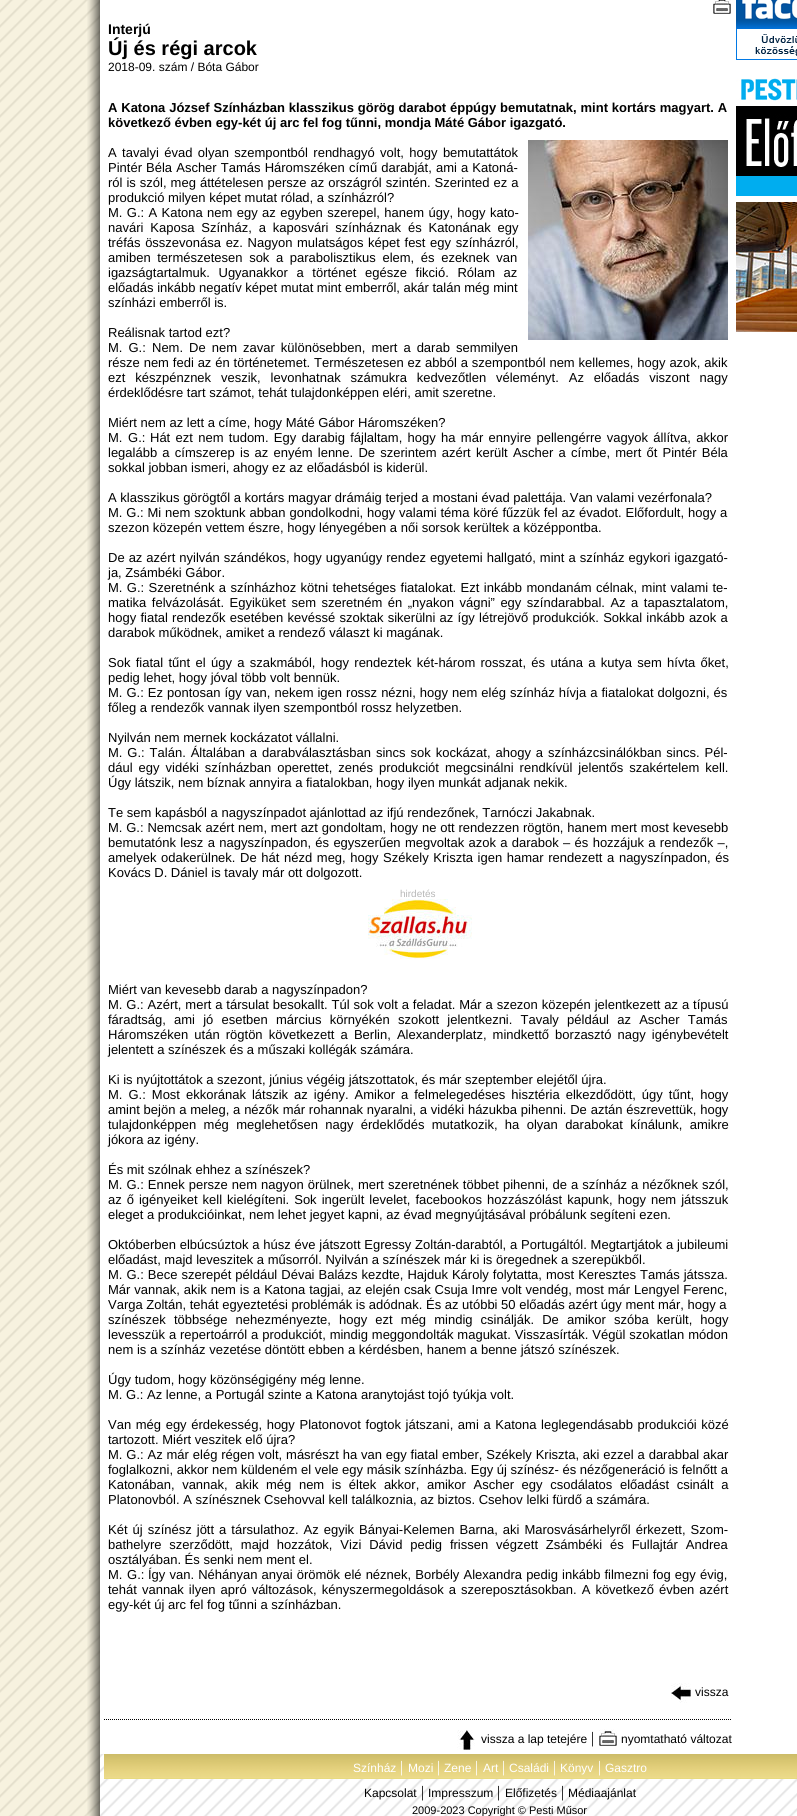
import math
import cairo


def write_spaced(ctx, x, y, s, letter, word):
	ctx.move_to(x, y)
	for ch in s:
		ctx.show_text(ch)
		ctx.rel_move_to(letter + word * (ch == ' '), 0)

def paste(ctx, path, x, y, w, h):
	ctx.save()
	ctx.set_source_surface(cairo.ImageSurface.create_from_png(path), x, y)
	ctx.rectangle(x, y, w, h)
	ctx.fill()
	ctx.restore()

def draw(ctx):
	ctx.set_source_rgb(1, 1, 1)
	ctx.paint()
	paste(ctx, 'media/1.png', 0, 0, 797, 1816)
	ctx.set_source_rgba(0.89, 0.812, 0.502, 0.25)
	ctx.rectangle(0, 0, 100, 1754)
	ctx.fill()
	paste(ctx, 'media/2.png', 87, 0, 13, 1754)
	ctx.set_source_rgb(1, 1, 1)
	ctx.rectangle(100, 0, 697, 1754)
	ctx.fill()
	paste(ctx, 'media/3.png', 713, 0, 18, 14)
	ctx.select_font_face('Liberation Sans', cairo.FONT_SLANT_NORMAL, cairo.FONT_WEIGHT_BOLD)
	ctx.set_font_size(14)
	ctx.set_source_rgb(0, 0, 0)
	ctx.move_to(108, 34)
	ctx.show_text('Interjú')
	ctx.set_font_size(20)
	ctx.move_to(108, 55)
	ctx.show_text('Új és régi arcok')
	ctx.select_font_face('Liberation Sans')
	ctx.set_font_size(12)
	ctx.move_to(108, 71)
	ctx.show_text('2018-09. szám / Bóta Gábor')
	ctx.select_font_face('Liberation Sans', cairo.FONT_SLANT_NORMAL, cairo.FONT_WEIGHT_BOLD)
	ctx.set_font_size(13)
	write_spaced(ctx, 108, 112, 'A Katona József Színházban klasszikus görög darabot éppúgy bemutatnak, mint kortárs magyart. A', 0, 0.25)
	ctx.move_to(108, 127)
	ctx.show_text('következő évben egy-két új arc fel fog tűnni, mondja Máté Gábor igazgató.')
	ctx.select_font_face('Liberation Sans')
	write_spaced(ctx, 108, 157, 'A tavalyi évad olyan szempontból rendhagyó volt, hogy bemutattátok', 0, 1.75)
	paste(ctx, 'media/4.png', 528, 140, 200, 200)
	write_spaced(ctx, 108, 172, 'Pintér Béla Ascher Tamás Háromszéken című darabját, ami a Katoná-', 0, 0.5)
	write_spaced(ctx, 108, 187, 'ról is szól, meg áttételesen persze az országról szintén. Szerinted ez a', 0, 0.4)
	ctx.move_to(108, 202)
	ctx.show_text('produkció milyen képet mutat rólad, a színházról?')
	write_spaced(ctx, 108, 217, 'M. G.: A Katona nem egy az egyben szerepel, hanem úgy, hogy kato-', 0, 0.75)
	write_spaced(ctx, 108, 232, 'navári Kaposa Színház, a kaposvári színháznak és Katonának egy', 0, 3.25)
	write_spaced(ctx, 108, 247, 'tréfás összevonása ez. Nagyon mulatságos képet fest egy színházról,', 0, 1)
	write_spaced(ctx, 108, 262, 'amiben természetesen sok a parabolisztikus elem, és ezeknek van', 0, 3)
	write_spaced(ctx, 108, 277, 'igazságtartalmuk. Ugyanakkor a történet egésze fikció. Rólam az', 0, 5)
	for x, y, s in [
		(108, 292, 'előadás inkább negatív képet mutat mint emberről, akár talán még mint'),
		(108, 307, 'színházi emberről is.'),
		(108, 337, 'Reálisnak tartod ezt?'),
	]:
		ctx.move_to(x, y)
		ctx.show_text(s)
	write_spaced(ctx, 108, 352, 'M. G.:', 0, 2.4)
	write_spaced(ctx, 152, 352, 'Nem. De nem zavar különösebben, mert a darab semmilyen', 0, 2.4)
	write_spaced(ctx, 108, 367, 'része nem fedi az én történetemet. Természetesen ez abból a szempontból nem kellemes, hogy azok, akik', 0, 0.25)
	write_spaced(ctx, 108, 382, 'ezt készpénznek veszik, levonhatnak számukra kedvezőtlen véleményt. Az előadás viszont nagy', 0, 6.25)
	ctx.move_to(108, 397)
	ctx.show_text('érdeklődésre tart számot, tehát tulajdonképpen eléri, amit szeretne.')
	ctx.move_to(108, 427)
	ctx.show_text('Miért nem az lett a címe, hogy Máté Gábor Háromszéken?')
	write_spaced(ctx, 108, 442, 'M. G.:', 0, 2)
	write_spaced(ctx, 150, 442, 'Hát ezt nem tudom. Egy darabig fájlaltam, hogy ha már ennyire pellengérre vagyok állítva, akkor', 0, 1.7)
	write_spaced(ctx, 108, 457, 'legalább a címszerep is az enyém lenne. De szerintem azért került Ascher a címbe, mert őt Pintér Béla', 0, 1.6)
	ctx.move_to(108, 472)
	ctx.show_text('sokkal jobban ismeri, ahogy ez az előadásból is kiderül.')
	ctx.move_to(108, 502)
	ctx.show_text('A klasszikus görögtől a kortárs magyar drámáig terjed a mostani évad palettája. Van valami vezérfonala?')
	write_spaced(ctx, 108, 517, 'M. G.: Mi nem szoktunk abban gondolkodni, hogy valami téma köré fűzzük fel az évadot. Előfordult, hogy a', 0, 0.25)
	ctx.move_to(108, 532)
	ctx.show_text('szezon közepén vettem észre, hogy lényegében a női sorsok kerültek a középpontba.')
	write_spaced(ctx, 108, 562, 'De az azért nyilván szándékos, hogy ugyanúgy rendez egyetemi hallgató, mint a színház egykori igazgató-', 0, 0.4)
	ctx.move_to(108, 577)
	ctx.show_text('ja, Zsámbéki Gábor.')
	write_spaced(ctx, 108, 592, 'M. G.: Szeretnénk a színházhoz kötni tehetséges fiatalokat. Ezt inkább mondanám célnak, mint valami te-', 0, 0.8)
	write_spaced(ctx, 108, 607, 'matika felvázolását. Egyiküket sem szeretném én „nyakon vágni” egy színdarabbal. Az a tapasztalatom,', 0, 1.9)
	write_spaced(ctx, 108, 622, 'hogy fiatal rendezők esetében kevéssé szoktak sikerülni az így létrejövő produkciók. Sokkal inkább azok a', 0, 0.6)
	ctx.move_to(108, 637)
	ctx.show_text('darabok működnek, amiket a rendező választ ki magának.')
	write_spaced(ctx, 108, 667, 'Sok fiatal tűnt el úgy a szakmából, hogy rendeztek két-három rosszat, és utána a kutya sem hívta őket,', 0, 1.7)
	ctx.move_to(108, 682)
	ctx.show_text('pedig lehet, hogy jóval több volt bennük.')
	write_spaced(ctx, 108, 697, 'M. G.: Ez pontosan így van, nekem igen rossz nézni, hogy nem elég színház hívja a fiatalokat dolgozni, és', 0, 0.4)
	ctx.move_to(108, 712)
	ctx.show_text('főleg a rendezők vannak ilyen szempontból rossz helyzetben.')
	ctx.move_to(108, 742)
	ctx.show_text('Nyilván nem mernek kockázatot vállalni.')
	write_spaced(ctx, 108, 757, 'M. G.: Talán. Általában a darabválasztásban sincs sok kockázat, ahogy a színházcsinálókban sincs. Pél-', 0, 1.3)
	write_spaced(ctx, 108, 772, 'dául egy vidéki színházban operettet, zenés produkciót megcsinálni rendkívül jelentős szakértelem kell.', 0, 2.4)
	ctx.move_to(108, 787)
	ctx.show_text('Úgy látszik, nem bíznak annyira a fiatalokban, hogy ilyen munkát adjanak nekik.')
	ctx.move_to(108, 817)
	ctx.show_text('Te sem kapásból a nagyszínpadot ajánlottad az ifjú rendezőnek, Tarnóczi Jakabnak.')
	write_spaced(ctx, 108, 832, 'M. G.: Nemcsak azért nem, mert azt gondoltam, hogy ne ott rendezzen rögtön, hanem mert most kevesebb', 0, 0.2)
	write_spaced(ctx, 108, 847, 'bemutatónk lesz a nagyszínpadon, és egyszerűen megvoltak azok a darabok – és hozzájuk a rendezők –,', 0, 0.7)
	write_spaced(ctx, 108, 862, 'amelyek odakerülnek. De hát nézd meg, hogy Székely Kriszta igen hamar rendezett a nagyszínpadon, és', 0, 1)
	ctx.move_to(108, 877)
	ctx.show_text('Kovács D. Dániel is tavaly már ott dolgozott.')
	ctx.set_font_size(10)
	ctx.set_source_rgb(0.718, 0.718, 0.718)
	ctx.move_to(400, 897)
	ctx.show_text('hirdetés')
	paste(ctx, 'media/5.png', 368, 899, 104, 60)
	ctx.set_font_size(13)
	ctx.set_source_rgb(0, 0, 0)
	ctx.move_to(108, 994)
	ctx.show_text('Miért van kevesebb darab a nagyszínpadon?')
	write_spaced(ctx, 108, 1009, 'M. G.: Azért, mert a társulat besokallt. Túl sok volt a feladat. Már a szezon közepén jelentkezett az a típusú', 0, 0.25)
	write_spaced(ctx, 108, 1024, 'fáradtság, ami jó esetben március környékén szokott jelentkezni. Tavaly például az Ascher Tamás', 0, 4.6)
	write_spaced(ctx, 108, 1039, 'Háromszéken után rögtön következett a Berlin, Alexanderplatz, mindkettő borzasztó nagy igénybevételt', 0, 2.5)
	ctx.move_to(108, 1054)
	ctx.show_text('jelentett a színészek és a műszaki kollégák számára.')
	ctx.move_to(108, 1084)
	ctx.show_text('Ki is nyújtottátok a szezont, június végéig játszottatok, és már szeptember elejétől újra.')
	write_spaced(ctx, 108, 1099, 'M. G.: Most ekkorának látszik az igény. Amikor a felmelegedéses hisztéria elkezdődött, úgy tűnt, hogy', 0, 2.4)
	write_spaced(ctx, 108, 1114, 'amint bejön a meleg, a nézők már rohannak nyaralni, a vidéki házukba pihenni. De aztán észrevettük, hogy', 0, 0.2)
	write_spaced(ctx, 108, 1129, 'tulajdonképpen még meglehetősen nagy érdeklődés mutatkozik, ha olyan darabokat kínálunk, amikre', 0, 3.75)
	ctx.move_to(108, 1144)
	ctx.show_text('jókora az igény.')
	ctx.move_to(108, 1174)
	ctx.show_text('És mit szólnak ehhez a színészek?')
	write_spaced(ctx, 108, 1189, 'M. G.: Ennek persze nem nagyon örülnek, mert szeretnének többet pihenni, de a színház a nézőknek szól,', 0, 0.4)
	write_spaced(ctx, 108, 1204, 'az ő igényeiket kell kielégíteni. Sok ingerült levelet, facebookos hozzászólást kapunk, hogy nem játsszuk', 0, 1.4)
	ctx.move_to(108, 1219)
	ctx.show_text('eleget a produkcióinkat, nem lehet jegyet kapni, az évad megnyújtásával próbálunk segíteni ezen.')
	write_spaced(ctx, 108, 1249, 'Októberben elbúcsúztok a húsz éve játszott Egressy Zoltán-darabtól, a Portugáltól. Megtartjátok a jubileumi', 0, 0.2)
	ctx.move_to(108, 1264)
	ctx.show_text('előadást, majd leveszitek a műsorról. Nyilván a színészek már ki is öregednek a szerepükből.')
	write_spaced(ctx, 108, 1279, 'M. G.: Bece szerepét például Dévai Balázs kezdte, Hajduk Károly folytatta, most Keresztes Tamás játssza.', 0, 0.4)
	write_spaced(ctx, 108, 1294, 'Már vannak, akik nem is a Katona tagjai, az elején csak Csuja Imre volt vendég, most már Lengyel Ferenc,', 0, 0.25)
	ctx.move_to(108, 1309)
	ctx.show_text('Varga Zoltán, tehát egyeztetési problémák is adódnak. És az utóbbi 50 előadás azért úgy ment már, hogy a')
	write_spaced(ctx, 108, 1324, 'színészek többsége nehezményezte, hogy ezt még mindig csinálják. De amikor szóba került, hogy', 0, 4.5)
	write_spaced(ctx, 108, 1339, 'levesszük a repertoárról a produkciót, mindig meggondolták magukat. Visszasírták. Végül szokatlan módon', 0, 0.25)
	for x, y, s in [
		(108, 1354, 'nem is a színház vezetése döntött ebben a kérdésben, hanem a benne játszó színészek.'),
		(108, 1384, 'Úgy tudom, hogy közönségigény még lenne.'),
		(108, 1399, 'M. G.: Az lenne, a Portugál szinte a Katona aranytojást tojó tyúkja volt.'),
	]:
		ctx.move_to(x, y)
		ctx.show_text(s)
	write_spaced(ctx, 108, 1429, 'Van még egy érdekesség, hogy Platonovot fogtok játszani, ami a Katona leglegendásabb produkciói közé', 0, 1)
	ctx.move_to(108, 1444)
	ctx.show_text('tartozott. Miért veszitek elő újra?')
	write_spaced(ctx, 108, 1459, 'M. G.: Az már elég régen volt, másrészt ha van egy fiatal ember, Székely Kriszta, aki ezzel a darabbal akar', 0, 0.25)
	ctx.move_to(108, 1474)
	ctx.show_text('foglalkozni, akkor nem küldeném el vele egy másik színházba. Egy új színész- és nézőgeneráció is felnőtt a')
	write_spaced(ctx, 108, 1489, 'Katonában, vannak, akik még nem is éltek akkor, amikor Ascher egy csodálatos előadást csinált a', 0, 4)
	ctx.move_to(108, 1504)
	ctx.show_text('Platonovból. A színésznek Csehovval kell találkoznia, az biztos. Csehov lelki fürdő a számára.')
	write_spaced(ctx, 108, 1534, 'Két új színész jött a társulathoz. Az egyik Bányai-Kelemen Barna, aki Marosvásárhelyről érkezett, Szom-', 0, 1.4)
	write_spaced(ctx, 108, 1549, 'bathelyre szerződött, majd hozzátok, Vizi Dávid pedig frissen végzett Zsámbéki és Fullajtár Andrea', 0, 4.25)
	ctx.move_to(108, 1564)
	ctx.show_text('osztályában. És senki nem ment el.')
	write_spaced(ctx, 108, 1579, 'M. G.:', 0, 1)
	write_spaced(ctx, 148, 1579, 'Így van. Néhányan anyai örömök elé néznek, Borbély Alexandra pedig inkább filmezni fog egy évig,', 0, 0.5)
	write_spaced(ctx, 108, 1594, 'tehát vannak ilyen apró változások, kényszermegoldások a szereposztásokban. A következő évben azért', 0, 1.4)
	ctx.move_to(108, 1609)
	ctx.show_text('egy-két új arc fel fog tűnni a színházban.')
	paste(ctx, 'media/6.png', 671, 1683, 20, 20)
	ctx.set_font_size(12)
	ctx.move_to(695, 1696)
	ctx.show_text('vissza')
	paste(ctx, 'media/7.png', 104, 1719, 627, 1)
	paste(ctx, 'media/8.png', 457, 1730, 18, 20)
	ctx.move_to(481, 1743)
	ctx.show_text('vissza a lap tetejére')
	ctx.select_font_face('Liberation Serif')
	ctx.set_font_size(16)
	ctx.move_to(591, 1743)
	ctx.show_text('|')
	paste(ctx, 'media/9.png', 599, 1729, 18, 17)
	ctx.select_font_face('Liberation Sans')
	ctx.set_font_size(12)
	ctx.move_to(621, 1743)
	ctx.show_text('nyomtatható változat')
	paste(ctx, 'media/10.png', 736, 0, 61, 60)
	paste(ctx, 'media/11.png', 736, 78, 61, 118)
	paste(ctx, 'media/12.png', 736, 202, 61, 130)
	ctx.set_source_rgba(0.89, 0.812, 0.502, 0.25)
	ctx.rectangle(0, 1754, 100, 62)
	ctx.fill()
	paste(ctx, 'media/13.png', 87, 1754, 13, 62)
	paste(ctx, 'media/14.png', 104, 1754, 693, 25)
	ctx.set_source_rgb(1, 1, 1)
	ctx.move_to(353, 1772)
	ctx.show_text('Színház')
	ctx.select_font_face('Liberation Serif')
	ctx.set_font_size(16)
	ctx.move_to(400, 1772)
	ctx.show_text('|')
	ctx.select_font_face('Liberation Sans')
	ctx.set_font_size(12)
	ctx.move_to(408, 1772)
	ctx.show_text('Mozi')
	ctx.select_font_face('Liberation Serif')
	ctx.set_font_size(16)
	ctx.move_to(437, 1772)
	ctx.show_text('|')
	ctx.select_font_face('Liberation Sans')
	ctx.set_font_size(12)
	ctx.move_to(444, 1772)
	ctx.show_text('Zene')
	ctx.select_font_face('Liberation Serif')
	ctx.set_font_size(16)
	ctx.move_to(475, 1772)
	ctx.show_text('|')
	ctx.select_font_face('Liberation Sans')
	ctx.set_font_size(12)
	ctx.move_to(483, 1772)
	ctx.show_text('Art')
	ctx.select_font_face('Liberation Serif')
	ctx.set_font_size(16)
	ctx.move_to(502, 1772)
	ctx.show_text('|')
	ctx.select_font_face('Liberation Sans')
	ctx.set_font_size(12)
	ctx.move_to(509, 1772)
	ctx.show_text('Családi')
	ctx.select_font_face('Liberation Serif')
	ctx.set_font_size(16)
	ctx.move_to(553, 1772)
	ctx.show_text('|')
	ctx.select_font_face('Liberation Sans')
	ctx.set_font_size(12)
	ctx.move_to(560, 1772)
	ctx.show_text('Könyv')
	ctx.select_font_face('Liberation Serif')
	ctx.set_font_size(16)
	ctx.move_to(598, 1772)
	ctx.show_text('|')
	ctx.select_font_face('Liberation Sans')
	ctx.set_font_size(12)
	ctx.move_to(605, 1772)
	ctx.show_text('Gasztro')
	ctx.set_source_rgb(0, 0, 0)
	ctx.move_to(364, 1797)
	ctx.show_text('Kapcsolat')
	ctx.select_font_face('Liberation Serif')
	ctx.set_font_size(16)
	ctx.move_to(421, 1797)
	ctx.show_text('|')
	ctx.select_font_face('Liberation Sans')
	ctx.set_font_size(12)
	ctx.move_to(428, 1797)
	ctx.show_text('Impresszum')
	ctx.select_font_face('Liberation Serif')
	ctx.set_font_size(16)
	ctx.move_to(497, 1797)
	ctx.show_text('|')
	ctx.select_font_face('Liberation Sans')
	ctx.set_font_size(12)
	ctx.move_to(505, 1797)
	ctx.show_text('Előfizetés')
	ctx.select_font_face('Liberation Serif')
	ctx.set_font_size(16)
	ctx.move_to(561, 1797)
	ctx.show_text('|')
	ctx.select_font_face('Liberation Sans')
	ctx.set_font_size(12)
	ctx.move_to(568, 1797)
	ctx.show_text('Médiaajánlat')
	ctx.set_font_size(11)
	ctx.move_to(412, 1814)
	ctx.show_text('2009-2023 Copyright © Pesti Műsor')


surface = cairo.ImageSurface(cairo.FORMAT_RGB24, 797, 1816)
ctx = cairo.Context(surface)
options = cairo.FontOptions()
options.set_hint_metrics(cairo.HINT_METRICS_OFF)
options.set_hint_style(cairo.HINT_STYLE_NONE)
ctx.set_font_options(options)
ctx.set_miter_limit(4)
draw(ctx)
surface.write_to_png('image.png')
